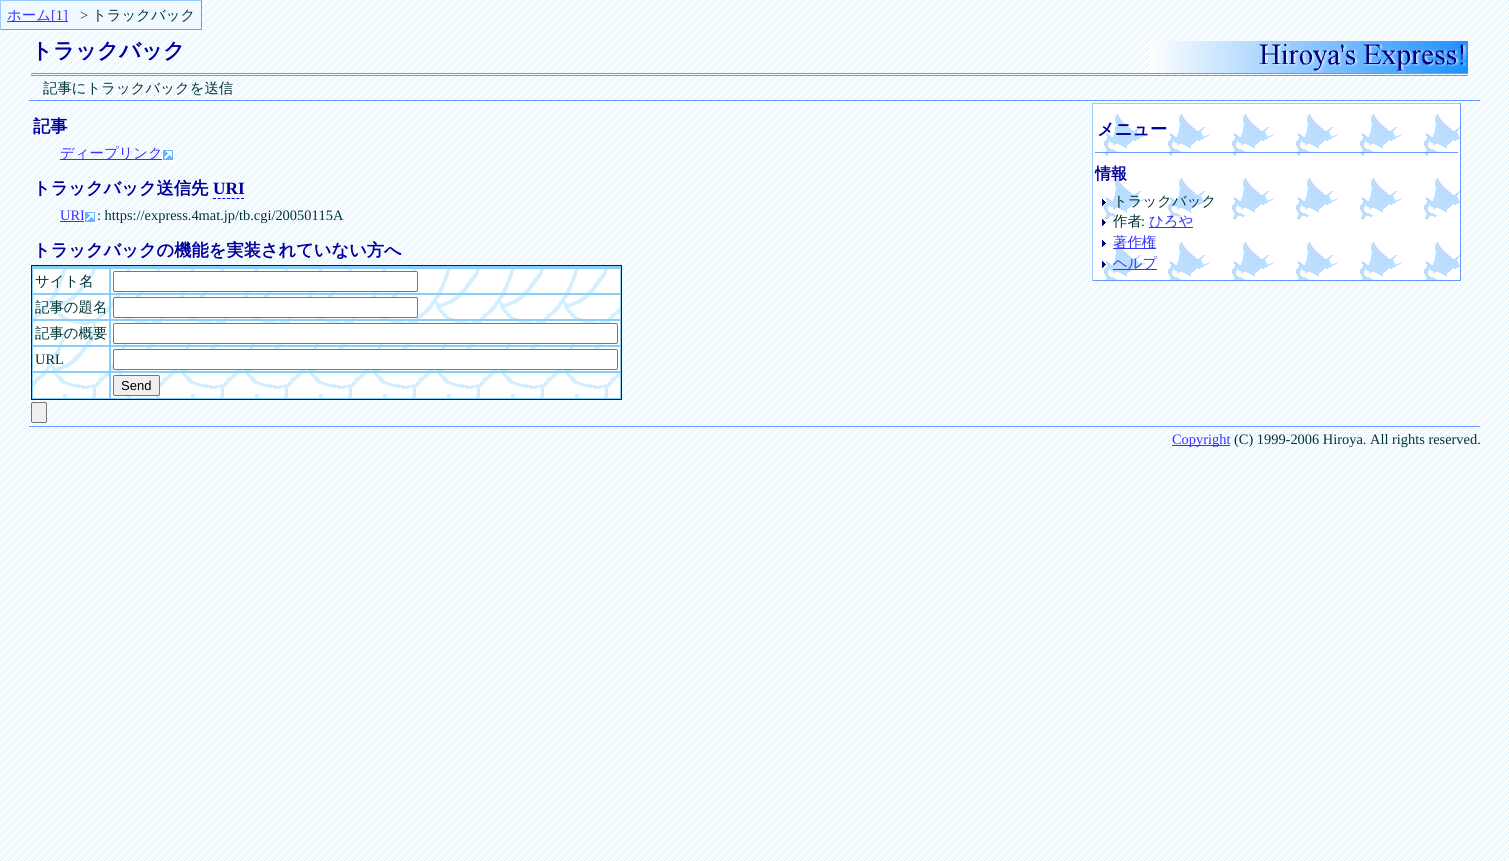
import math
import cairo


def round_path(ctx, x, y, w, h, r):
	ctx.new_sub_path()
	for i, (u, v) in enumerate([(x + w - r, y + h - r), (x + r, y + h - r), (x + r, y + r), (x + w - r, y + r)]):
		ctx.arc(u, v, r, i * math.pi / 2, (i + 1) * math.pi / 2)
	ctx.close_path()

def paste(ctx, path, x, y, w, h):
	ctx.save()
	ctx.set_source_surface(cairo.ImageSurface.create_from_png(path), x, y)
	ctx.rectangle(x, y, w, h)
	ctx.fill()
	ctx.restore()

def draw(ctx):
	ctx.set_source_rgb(1, 1, 1)
	ctx.paint()
	paste(ctx, 'media/1.png', 0, 0, 1509, 861)
	ctx.set_source_rgb(0.941, 0.973, 1)
	ctx.rectangle(1, 1, 200, 28)
	ctx.fill()
	ctx.set_source_rgb(0.6, 0.8, 1)
	ctx.rectangle(0, 0, 202, 1)
	ctx.fill()
	ctx.set_source_rgb(0.4, 0.6, 1)
	ctx.rectangle(201, 0, 1, 30)
	ctx.rectangle(0, 29, 202, 1)
	ctx.fill()
	ctx.set_source_rgb(0.6, 0.8, 1)
	ctx.rectangle(0, 0, 1, 30)
	ctx.fill()
	ctx.set_source_rgb(0.2, 0.2, 1)
	ctx.rectangle(7, 21, 61, 1)
	ctx.fill()
	ctx.select_font_face('WenQuanYi Zen Hei Medium')
	ctx.set_font_size(14.4)
	ctx.move_to(7, 20)
	ctx.show_text('ホーム')
	ctx.select_font_face('Liberation Serif')
	ctx.move_to(51, 20)
	ctx.show_text('[1]')
	ctx.set_source_rgb(0, 0.2, 0.2)
	ctx.move_to(80, 20)
	ctx.show_text('>')
	ctx.select_font_face('WenQuanYi Zen Hei Medium')
	ctx.move_to(92, 20)
	ctx.show_text('トラックバック')
	ctx.set_source_rgb(0.4, 0.6, 1)
	ctx.rectangle(29, 426, 1451, 1)
	ctx.fill()
	ctx.set_source_rgb(0.2, 0.2, 1)
	ctx.rectangle(1172, 445, 58, 1)
	ctx.fill()
	ctx.select_font_face('Liberation Serif')
	ctx.move_to(1172, 444)
	ctx.show_text('Copyright')
	ctx.set_source_rgb(0, 0.2, 0.2)
	ctx.move_to(1234, 444)
	ctx.show_text('(C) 1999-2006 Hiroya. All rights reserved.')
	ctx.set_source_rgb(0.4, 0.6, 1)
	ctx.rectangle(29, 100, 1451, 1)
	ctx.fill()
	paste(ctx, 'media/2.png', 1149, 41, 319, 32)
	ctx.rectangle(31, 73, 1437, 1)
	ctx.fill()
	ctx.rectangle(31, 75, 1437, 1)
	ctx.fill()
	ctx.select_font_face('WenQuanYi Zen Hei', cairo.FONT_SLANT_NORMAL, cairo.FONT_WEIGHT_BOLD)
	ctx.set_font_size(21.5)
	ctx.set_source_rgb(0, 0, 0.6)
	ctx.move_to(31, 58)
	ctx.show_text('トラックバック')
	ctx.select_font_face('WenQuanYi Zen Hei Medium')
	ctx.set_font_size(14.4)
	ctx.set_source_rgb(0, 0.2, 0.2)
	ctx.move_to(43, 93)
	ctx.show_text('記事にトラックバックを送信')
	ctx.select_font_face('WenQuanYi Zen Hei', cairo.FONT_SLANT_NORMAL, cairo.FONT_WEIGHT_BOLD)
	ctx.set_font_size(17.25)
	ctx.set_source_rgb(0, 0, 0.6)
	ctx.move_to(33, 132)
	ctx.show_text('記事')
	ctx.set_source_rgb(0.2, 0.2, 1)
	ctx.rectangle(60, 159, 102, 1)
	ctx.fill()
	ctx.select_font_face('WenQuanYi Zen Hei Medium')
	ctx.set_font_size(14.4)
	ctx.move_to(60, 158)
	ctx.show_text('ディープリンク')
	paste(ctx, 'media/3.png', 162, 149, 12, 12)
	ctx.select_font_face('WenQuanYi Zen Hei', cairo.FONT_SLANT_NORMAL, cairo.FONT_WEIGHT_BOLD)
	ctx.set_font_size(17.25)
	ctx.set_source_rgb(0, 0, 0.6)
	ctx.move_to(33, 194)
	ctx.show_text('トラックバック送信先')
	ctx.select_font_face('Liberation Serif', cairo.FONT_SLANT_NORMAL, cairo.FONT_WEIGHT_BOLD)
	ctx.move_to(213, 194)
	ctx.show_text('URI')
	ctx.new_path()
	ctx.move_to(213, 198.5)
	ctx.line_to(244, 198.5)
	ctx.set_source_rgb(0, 0, 1)
	ctx.set_line_width(1)
	ctx.set_dash([3, 1.67])
	ctx.stroke()
	ctx.select_font_face('Liberation Serif')
	ctx.set_font_size(14.4)
	ctx.set_source_rgb(0.2, 0.2, 1)
	ctx.move_to(60, 220)
	ctx.show_text('URI')
	ctx.rectangle(60, 221, 24, 1)
	ctx.fill()
	paste(ctx, 'media/3.png', 84, 211, 12, 12)
	ctx.set_source_rgb(0, 0.2, 0.2)
	ctx.move_to(97, 220)
	ctx.show_text(': https://express.4mat.jp/tb.cgi/20050115A')
	ctx.select_font_face('WenQuanYi Zen Hei', cairo.FONT_SLANT_NORMAL, cairo.FONT_WEIGHT_BOLD)
	ctx.set_font_size(17.25)
	ctx.set_source_rgb(0, 0, 0.6)
	ctx.move_to(33, 256)
	ctx.show_text('トラックバックの機能を実装されていない方へ')
	paste(ctx, 'media/4.png', 33, 269, 587, 129)
	ctx.rectangle(31.5, 265.5, 590, 134)
	ctx.set_source_rgb(0, 0, 1)
	ctx.set_dash([])
	ctx.stroke()
	ctx.set_source_rgb(0.529, 0.808, 0.98)
	ctx.rectangle(32, 266, 589, 2)
	ctx.fill()
	ctx.rectangle(32.5, 268.5, 77, 25)
	ctx.stroke()
	ctx.select_font_face('WenQuanYi Zen Hei Medium')
	ctx.set_font_size(14.4)
	ctx.set_source_rgb(0, 0.2, 0.2)
	ctx.move_to(35, 286)
	ctx.show_text('サイト名')
	ctx.rectangle(110.5, 268.5, 510, 25)
	ctx.set_source_rgb(0.529, 0.808, 0.98)
	ctx.stroke()
	ctx.set_source_rgb(1, 1, 1)
	round_path(ctx, 113.5, 271.5, 304, 20, 1.5)
	ctx.fill_preserve()
	ctx.set_source_rgb(0.463, 0.463, 0.463)
	ctx.stroke()
	ctx.rectangle(32.5, 294.5, 77, 25)
	ctx.set_source_rgb(0.529, 0.808, 0.98)
	ctx.stroke()
	ctx.set_source_rgb(0, 0.2, 0.2)
	ctx.move_to(35, 312)
	ctx.show_text('記事の題名')
	ctx.rectangle(110.5, 294.5, 510, 25)
	ctx.set_source_rgb(0.529, 0.808, 0.98)
	ctx.stroke()
	ctx.set_source_rgb(1, 1, 1)
	round_path(ctx, 113.5, 297.5, 304, 20, 1.5)
	ctx.fill_preserve()
	ctx.set_source_rgb(0.463, 0.463, 0.463)
	ctx.stroke()
	ctx.rectangle(32.5, 320.5, 77, 25)
	ctx.set_source_rgb(0.529, 0.808, 0.98)
	ctx.stroke()
	ctx.set_source_rgb(0, 0.2, 0.2)
	ctx.move_to(35, 338)
	ctx.show_text('記事の概要')
	ctx.rectangle(110.5, 320.5, 510, 25)
	ctx.set_source_rgb(0.529, 0.808, 0.98)
	ctx.stroke()
	ctx.set_source_rgb(1, 1, 1)
	round_path(ctx, 113.5, 323.5, 504, 20, 1.5)
	ctx.fill_preserve()
	ctx.set_source_rgb(0.463, 0.463, 0.463)
	ctx.stroke()
	ctx.rectangle(32.5, 346.5, 77, 25)
	ctx.set_source_rgb(0.529, 0.808, 0.98)
	ctx.stroke()
	ctx.select_font_face('Liberation Serif')
	ctx.set_source_rgb(0, 0.2, 0.2)
	ctx.move_to(35, 364)
	ctx.show_text('URL')
	ctx.rectangle(110.5, 346.5, 510, 25)
	ctx.set_source_rgb(0.529, 0.808, 0.98)
	ctx.stroke()
	ctx.set_source_rgb(1, 1, 1)
	round_path(ctx, 113.5, 349.5, 504, 20, 1.5)
	ctx.fill_preserve()
	ctx.set_source_rgb(0.463, 0.463, 0.463)
	ctx.stroke()
	ctx.rectangle(32.5, 372.5, 77, 26)
	ctx.set_source_rgb(0.529, 0.808, 0.98)
	ctx.stroke()
	ctx.rectangle(110.5, 372.5, 510, 26)
	ctx.stroke()
	ctx.set_source_rgb(0.937, 0.937, 0.937)
	round_path(ctx, 113.5, 375.5, 46, 20, 1.5)
	ctx.fill_preserve()
	ctx.set_source_rgb(0.463, 0.463, 0.463)
	ctx.stroke()
	ctx.select_font_face('Liberation Sans')
	ctx.set_font_size(13)
	ctx.set_source_rgb(0, 0, 0)
	ctx.move_to(121, 390)
	ctx.show_text('Send')
	ctx.set_source_rgb(0.937, 0.937, 0.937)
	round_path(ctx, 31.5, 402.5, 15, 20, 1.5)
	ctx.fill_preserve()
	ctx.set_source_rgb(0.463, 0.463, 0.463)
	ctx.stroke()
	ctx.set_source_rgb(1, 1, 1)
	ctx.rectangle(1093, 104, 367, 176)
	ctx.fill()
	paste(ctx, 'media/5.png', 1104, 114, 356, 166)
	ctx.set_source_rgb(0.6, 0.8, 1)
	ctx.rectangle(1092, 103, 369, 1)
	ctx.fill()
	ctx.set_source_rgb(0.4, 0.6, 1)
	ctx.rectangle(1460, 103, 1, 178)
	ctx.rectangle(1092, 280, 369, 1)
	ctx.fill()
	ctx.set_source_rgb(0.6, 0.8, 1)
	ctx.rectangle(1092, 103, 1, 178)
	ctx.fill()
	ctx.select_font_face('WenQuanYi Zen Hei', cairo.FONT_SLANT_NORMAL, cairo.FONT_WEIGHT_BOLD)
	ctx.set_font_size(17.25)
	ctx.set_source_rgb(0, 0, 0.6)
	ctx.move_to(1097, 135)
	ctx.show_text('メニュー')
	ctx.set_source_rgb(0.4, 0.6, 1)
	ctx.rectangle(1095, 152, 363, 1)
	ctx.fill()
	ctx.set_font_size(16)
	ctx.set_source_rgb(0, 0, 0.6)
	ctx.move_to(1095, 179)
	ctx.show_text('情報')
	paste(ctx, 'media/6.png', 1102, 199, 4, 7)
	ctx.select_font_face('WenQuanYi Zen Hei Medium')
	ctx.set_font_size(14.4)
	ctx.set_source_rgb(0, 0.2, 0.2)
	ctx.move_to(1113, 206)
	ctx.show_text('トラックバック')
	paste(ctx, 'media/7.png', 1102, 219, 4, 7)
	ctx.move_to(1113, 226)
	ctx.show_text('作者')
	ctx.select_font_face('Liberation Serif')
	ctx.move_to(1141, 226)
	ctx.show_text(':')
	ctx.set_source_rgb(0.2, 0.2, 1)
	ctx.rectangle(1149, 227, 44, 1)
	ctx.fill()
	ctx.select_font_face('WenQuanYi Zen Hei Medium')
	ctx.move_to(1149, 226)
	ctx.show_text('ひろや')
	paste(ctx, 'media/7.png', 1102, 240, 4, 7)
	ctx.rectangle(1113, 248, 43, 1)
	ctx.fill()
	ctx.move_to(1113, 247)
	ctx.show_text('著作権')
	paste(ctx, 'media/7.png', 1102, 261, 4, 7)
	ctx.rectangle(1113, 269, 44, 1)
	ctx.fill()
	ctx.move_to(1113, 268)
	ctx.show_text('ヘルプ')


surface = cairo.ImageSurface(cairo.FORMAT_RGB24, 1509, 861)
ctx = cairo.Context(surface)
options = cairo.FontOptions()
options.set_hint_metrics(cairo.HINT_METRICS_OFF)
options.set_hint_style(cairo.HINT_STYLE_NONE)
ctx.set_font_options(options)
ctx.set_miter_limit(4)
draw(ctx)
surface.write_to_png('image.png')
